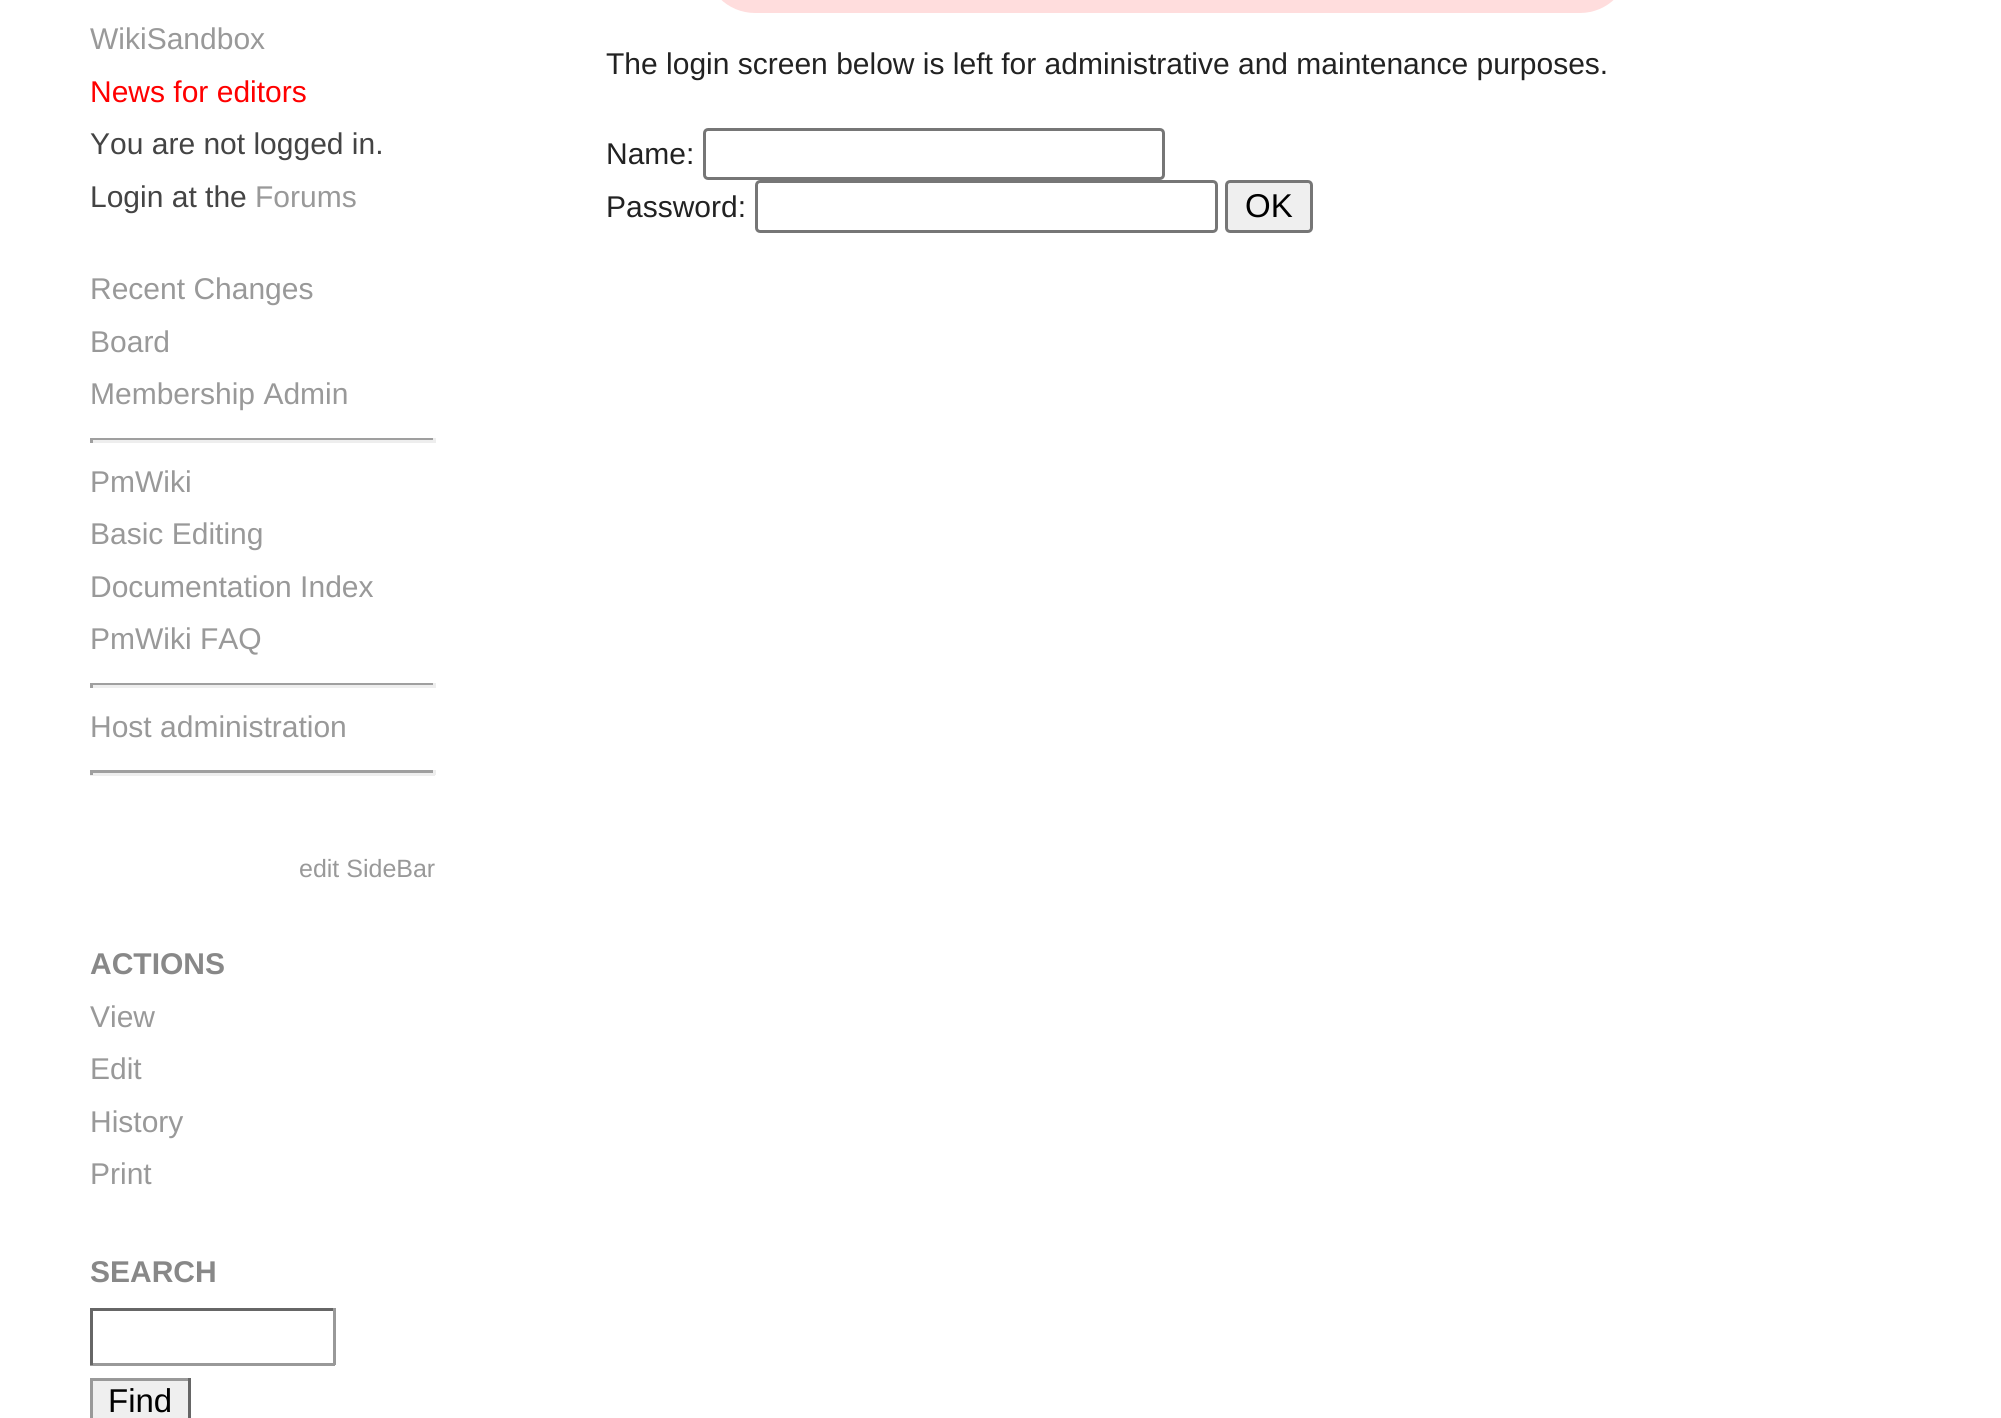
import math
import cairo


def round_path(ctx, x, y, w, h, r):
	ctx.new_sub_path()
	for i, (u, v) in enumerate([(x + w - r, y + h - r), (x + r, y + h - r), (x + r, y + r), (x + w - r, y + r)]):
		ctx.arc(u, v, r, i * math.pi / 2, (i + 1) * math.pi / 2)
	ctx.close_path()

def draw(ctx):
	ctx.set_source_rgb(1, 1, 1)
	ctx.paint()
	ctx.select_font_face('Liberation Sans')
	ctx.set_font_size(30)
	ctx.set_source_rgb(0.6, 0.6, 0.6)
	ctx.move_to(90, 49)
	ctx.show_text('WikiSandbox')
	ctx.set_source_rgb(1, 0, 0)
	ctx.move_to(90, 102)
	ctx.show_text('News for editors')
	ctx.set_source_rgb(0.267, 0.267, 0.267)
	ctx.move_to(90, 154)
	ctx.show_text('You are not logged in.')
	ctx.move_to(90, 207)
	ctx.show_text('Login at the')
	ctx.set_source_rgb(0.6, 0.6, 0.6)
	for x, y, s in [
		(255, 207, 'Forums'),
		(90, 299, 'Recent Changes'),
		(90, 352, 'Board'),
		(90, 404, 'Membership Admin'),
	]:
		ctx.move_to(x, y)
		ctx.show_text(s)
	ctx.set_source_rgb(0.624, 0.624, 0.624)
	ctx.rectangle(90, 438, 345, 2)
	ctx.fill()
	ctx.set_source_rgb(0.933, 0.933, 0.933)
	ctx.rectangle(433, 438, 3, 5)
	ctx.rectangle(90, 440, 345, 3)
	ctx.fill()
	ctx.set_source_rgb(0.624, 0.624, 0.624)
	ctx.rectangle(90, 438, 3, 5)
	ctx.fill()
	ctx.set_source_rgb(0.6, 0.6, 0.6)
	for x, y, s in [
		(90, 492, 'PmWiki'),
		(90, 544, 'Basic Editing'),
		(90, 597, 'Documentation Index'),
		(90, 649, 'PmWiki FAQ'),
	]:
		ctx.move_to(x, y)
		ctx.show_text(s)
	ctx.set_source_rgb(0.624, 0.624, 0.624)
	ctx.rectangle(90, 683, 345, 2)
	ctx.fill()
	ctx.set_source_rgb(0.933, 0.933, 0.933)
	ctx.rectangle(433, 683, 3, 5)
	ctx.rectangle(90, 685, 345, 3)
	ctx.fill()
	ctx.set_source_rgb(0.624, 0.624, 0.624)
	ctx.rectangle(90, 683, 3, 5)
	ctx.fill()
	ctx.set_source_rgb(0.6, 0.6, 0.6)
	ctx.move_to(90, 737)
	ctx.show_text('Host administration')
	ctx.set_source_rgb(0.624, 0.624, 0.624)
	ctx.rectangle(90, 770, 345, 3)
	ctx.fill()
	ctx.set_source_rgb(0.933, 0.933, 0.933)
	ctx.rectangle(433, 770, 3, 5)
	ctx.rectangle(90, 773, 345, 3)
	ctx.fill()
	ctx.set_source_rgb(0.624, 0.624, 0.624)
	ctx.rectangle(90, 770, 3, 5)
	ctx.fill()
	ctx.set_font_size(25)
	ctx.set_source_rgb(0.6, 0.6, 0.6)
	ctx.move_to(299, 877)
	ctx.show_text('edit SideBar')
	ctx.select_font_face('Liberation Sans', cairo.FONT_SLANT_NORMAL, cairo.FONT_WEIGHT_BOLD)
	ctx.set_font_size(30)
	ctx.set_source_rgb(0.533, 0.533, 0.533)
	ctx.move_to(90, 974)
	ctx.show_text('ACTIONS')
	ctx.select_font_face('Liberation Sans')
	ctx.set_source_rgb(0.6, 0.6, 0.6)
	for x, y, s in [
		(90, 1027, 'View'),
		(90, 1079, 'Edit'),
		(90, 1132, 'History'),
		(90, 1184, 'Print'),
	]:
		ctx.move_to(x, y)
		ctx.show_text(s)
	ctx.select_font_face('Liberation Sans', cairo.FONT_SLANT_NORMAL, cairo.FONT_WEIGHT_BOLD)
	ctx.set_source_rgb(0.533, 0.533, 0.533)
	ctx.move_to(90, 1282)
	ctx.show_text('SEARCH')
	ctx.set_source_rgb(0.4, 0.4, 0.4)
	ctx.rectangle(90, 1308, 245, 3)
	ctx.fill()
	ctx.set_source_rgb(0.6, 0.6, 0.6)
	ctx.rectangle(333, 1308, 3, 57)
	ctx.rectangle(90, 1363, 245, 3)
	ctx.fill()
	ctx.set_source_rgb(0.4, 0.4, 0.4)
	ctx.rectangle(90, 1308, 3, 57)
	ctx.fill()
	ctx.set_source_rgb(0.937, 0.937, 0.937)
	ctx.rectangle(93, 1381, 95, 37)
	ctx.fill()
	ctx.set_source_rgb(0.6, 0.6, 0.6)
	ctx.rectangle(90, 1378, 100, 3)
	ctx.fill()
	ctx.set_source_rgb(0.4, 0.4, 0.4)
	ctx.rectangle(188, 1378, 3, 40)
	ctx.fill()
	ctx.set_source_rgb(0.6, 0.6, 0.6)
	ctx.rectangle(90, 1378, 3, 40)
	ctx.fill()
	ctx.select_font_face('Liberation Sans')
	ctx.set_font_size(33)
	ctx.set_source_rgb(0, 0, 0)
	ctx.move_to(108, 1412)
	ctx.show_text('Find')
	ctx.set_source_rgb(1, 0.867, 0.867)
	round_path(ctx, 705, -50, 925, 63, 50)
	ctx.fill()
	ctx.set_font_size(30)
	ctx.set_source_rgb(0.133, 0.133, 0.133)
	ctx.move_to(606, 74)
	ctx.show_text('The login screen below is left for administrative and maintenance purposes.')
	ctx.move_to(606, 164)
	ctx.show_text('Name:')
	round_path(ctx, 704.5, 129.5, 459, 49, 3.5)
	ctx.set_source_rgb(0.463, 0.463, 0.463)
	ctx.set_line_width(3)
	ctx.stroke()
	ctx.set_source_rgb(0.133, 0.133, 0.133)
	ctx.move_to(606, 217)
	ctx.show_text('Password:')
	round_path(ctx, 756.5, 181.5, 460, 50, 3.5)
	ctx.set_source_rgb(0.463, 0.463, 0.463)
	ctx.stroke()
	ctx.set_source_rgb(0.937, 0.937, 0.937)
	round_path(ctx, 1226.5, 181.5, 85, 50, 3.5)
	ctx.fill_preserve()
	ctx.set_source_rgb(0.463, 0.463, 0.463)
	ctx.stroke()
	ctx.set_font_size(33)
	ctx.set_source_rgb(0, 0, 0)
	ctx.move_to(1245, 217)
	ctx.show_text('OK')


surface = cairo.ImageSurface(cairo.FORMAT_RGB24, 2001, 1418)
ctx = cairo.Context(surface)
options = cairo.FontOptions()
options.set_hint_metrics(cairo.HINT_METRICS_OFF)
options.set_hint_style(cairo.HINT_STYLE_NONE)
ctx.set_font_options(options)
ctx.set_miter_limit(4)
draw(ctx)
surface.write_to_png('image.png')
